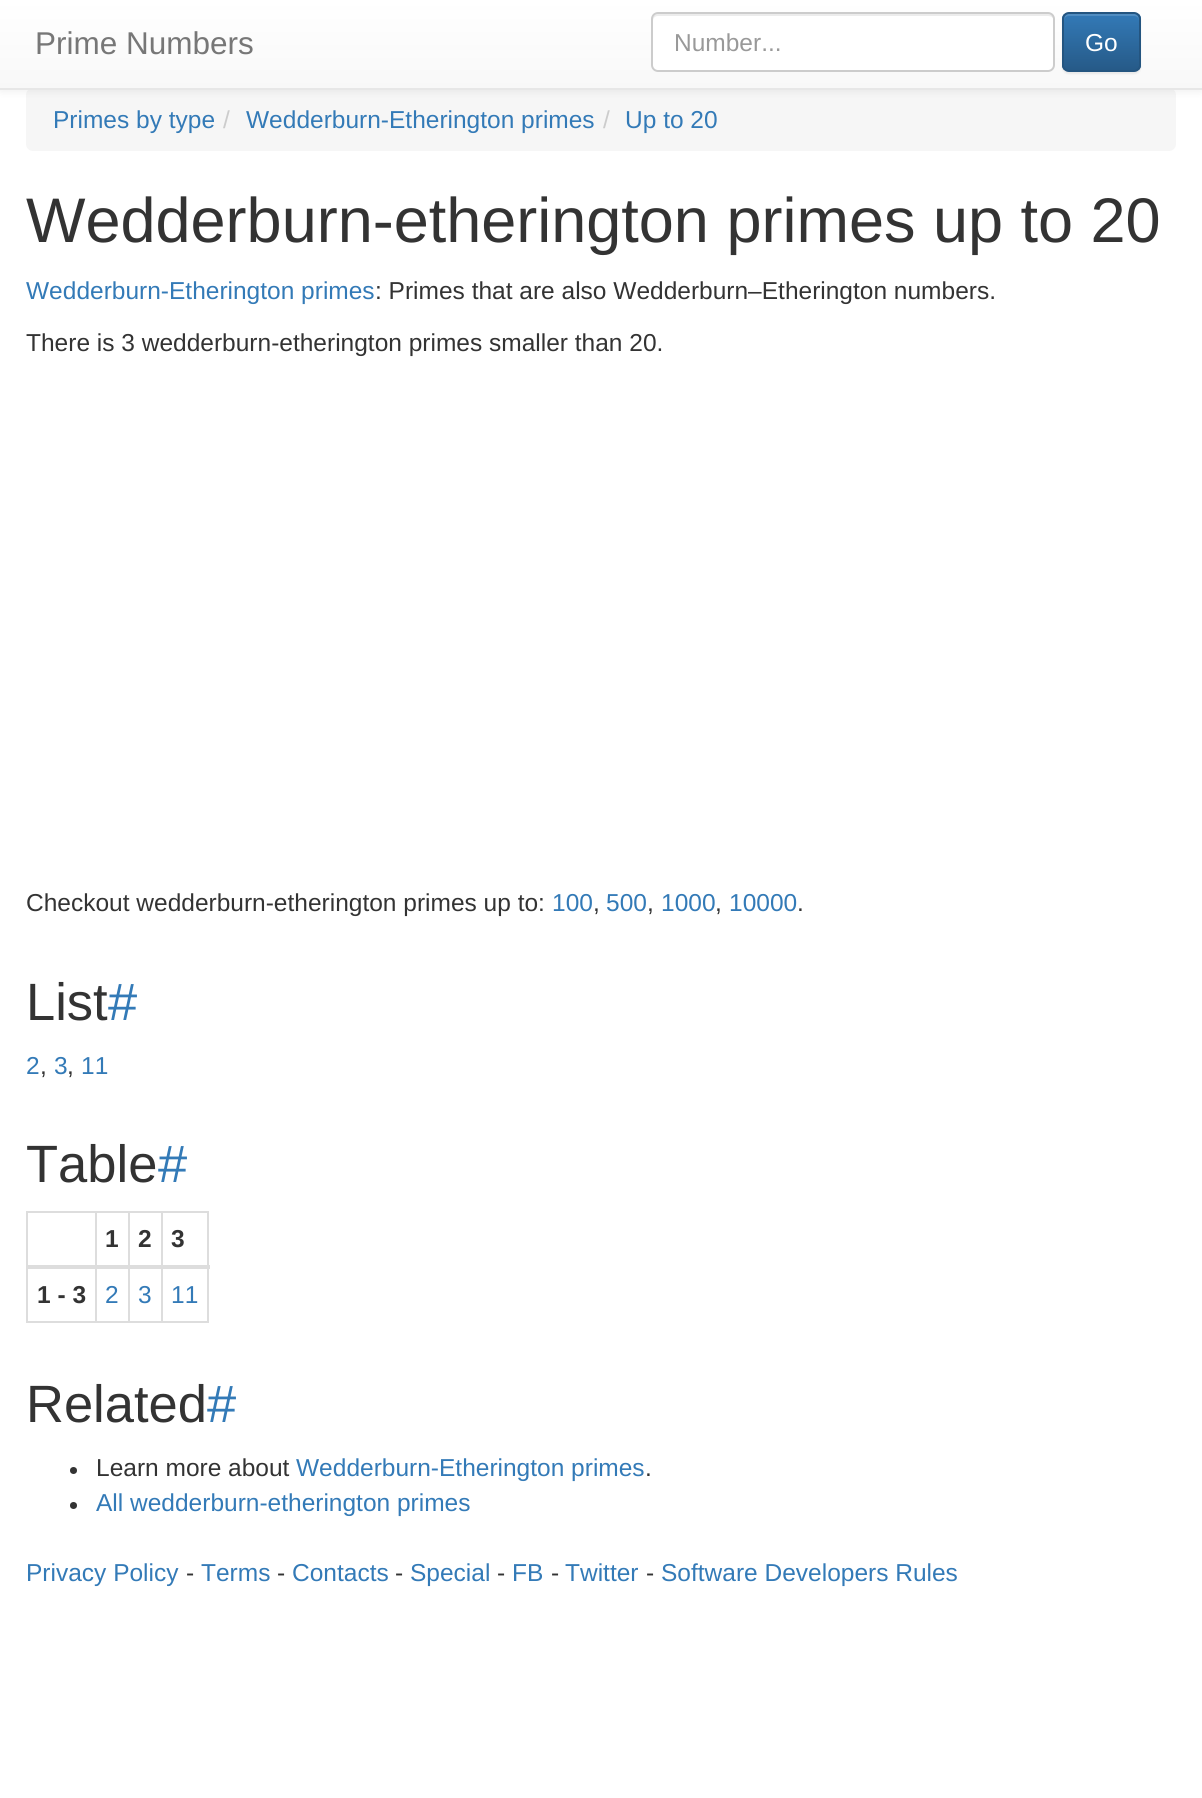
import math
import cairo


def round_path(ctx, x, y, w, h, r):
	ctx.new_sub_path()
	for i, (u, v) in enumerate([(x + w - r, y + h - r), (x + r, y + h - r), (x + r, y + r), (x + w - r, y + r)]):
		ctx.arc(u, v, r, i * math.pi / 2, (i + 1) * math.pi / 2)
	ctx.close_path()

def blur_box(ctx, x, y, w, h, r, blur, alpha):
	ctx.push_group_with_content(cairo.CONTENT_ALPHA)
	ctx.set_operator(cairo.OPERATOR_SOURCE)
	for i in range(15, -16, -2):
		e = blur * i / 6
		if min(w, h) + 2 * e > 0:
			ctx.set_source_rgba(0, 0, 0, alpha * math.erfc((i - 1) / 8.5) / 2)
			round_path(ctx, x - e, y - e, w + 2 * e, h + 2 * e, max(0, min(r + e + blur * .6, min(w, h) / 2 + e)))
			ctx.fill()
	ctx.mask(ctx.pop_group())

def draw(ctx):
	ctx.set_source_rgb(1, 1, 1)
	ctx.paint()
	ctx.set_source_rgb(0.961, 0.961, 0.961)
	round_path(ctx, 26, 88, 1150, 63, 7)
	ctx.fill()
	ctx.set_source_rgb(0, 0, 0)
	blur_box(ctx, 0, 2, 1202, 89, 0, 4.5, 0.07)
	gradient = cairo.LinearGradient(601, 0, 601, 88)
	gradient.add_color_stop_rgba(0, 1, 1, 1, 1)
	gradient.add_color_stop_rgba(1, 0.973, 0.973, 0.973, 1)
	ctx.set_source(gradient)
	ctx.rectangle(0, 0, 1202, 88)
	ctx.fill()
	ctx.set_source_rgb(0.906, 0.906, 0.906)
	ctx.rectangle(0, 88, 1202, 2)
	ctx.fill()
	ctx.select_font_face('Liberation Sans')
	ctx.set_font_size(31.5)
	ctx.set_source_rgb(0.467, 0.467, 0.467)
	ctx.move_to(35, 54)
	ctx.show_text('Prime Numbers')
	ctx.set_source_rgb(1, 1, 1)
	round_path(ctx, 651, 12, 404, 60, 7)
	ctx.fill()
	ctx.set_source_rgb(0.925, 0.925, 0.925)
	ctx.new_path()
	ctx.move_to(658, 16)
	ctx.line_to(1048, 16)
	ctx.curve_to(1051, 16, 1054, 18, 1054, 21)
	ctx.line_to(1054, 19)
	ctx.curve_to(1054, 16, 1052, 14, 1049, 14)
	ctx.line_to(658, 14)
	ctx.curve_to(655, 14, 653, 16, 653, 19)
	ctx.line_to(653, 21)
	ctx.curve_to(653, 18, 655, 16, 658, 16)
	ctx.close_path()
	ctx.fill()
	round_path(ctx, 652, 13, 402, 58, 6)
	ctx.set_source_rgb(0.8, 0.8, 0.8)
	ctx.stroke()
	ctx.set_font_size(24.5)
	ctx.set_source_rgb(0.6, 0.6, 0.6)
	ctx.move_to(674, 51)
	ctx.show_text('Number...')
	ctx.set_source_rgb(0, 0, 0)
	blur_box(ctx, 1062, 14, 79, 60, 7, 1, 0.07)
	ctx.save()
	round_path(ctx, 1062, 12, 79, 60, 7)
	ctx.clip()
	gradient = cairo.LinearGradient(1102, 14, 1102, 70)
	gradient.add_color_stop_rgba(0, 0.2, 0.478, 0.718, 1)
	gradient.add_color_stop_rgba(1, 0.149, 0.353, 0.533, 1)
	ctx.set_source(gradient)
	ctx.rectangle(1062, 14, 79, 56)
	ctx.fill()
	ctx.restore()
	ctx.set_source_rgba(1, 1, 1, 0.15)
	ctx.new_path()
	ctx.move_to(1069, 16)
	ctx.line_to(1134, 16)
	ctx.curve_to(1137, 16, 1139, 18, 1139, 21)
	ctx.curve_to(1139, 11, 1131, 14, 1123, 14)
	ctx.line_to(1080, 14)
	ctx.curve_to(1072, 14, 1064, 11, 1064, 21)
	ctx.curve_to(1064, 18, 1066, 16, 1069, 16)
	ctx.close_path()
	ctx.fill()
	round_path(ctx, 1063, 13, 77, 58, 6)
	ctx.set_source_rgb(0.141, 0.333, 0.502)
	ctx.stroke()
	ctx.set_source_rgb(1, 1, 1)
	ctx.move_to(1085, 51)
	ctx.show_text('Go')
	ctx.set_source_rgb(0.2, 0.478, 0.718)
	ctx.move_to(53, 128)
	ctx.show_text('Primes by type')
	ctx.set_source_rgb(0.8, 0.8, 0.8)
	ctx.move_to(223, 128)
	ctx.show_text('/')
	ctx.set_source_rgb(0.2, 0.478, 0.718)
	ctx.move_to(246, 128)
	ctx.show_text('Wedderburn-Etherington primes')
	ctx.set_source_rgb(0.8, 0.8, 0.8)
	ctx.move_to(603, 128)
	ctx.show_text('/')
	ctx.set_source_rgb(0.2, 0.478, 0.718)
	ctx.move_to(625, 128)
	ctx.show_text('Up to 20')
	ctx.set_font_size(63)
	ctx.set_source_rgb(0.2, 0.2, 0.2)
	ctx.move_to(26, 242)
	ctx.show_text('Wedderburn-etherington primes up to 20')
	ctx.set_font_size(24.5)
	ctx.set_source_rgb(0.2, 0.478, 0.718)
	ctx.move_to(26, 299)
	ctx.show_text('Wedderburn-Etherington primes')
	ctx.set_source_rgb(0.2, 0.2, 0.2)
	for x, y, s in [
		(375, 299, ': Primes that are also Wedderburn–Etherington numbers.'),
		(26, 351, 'There is 3 wedderburn-etherington primes smaller than 20.'),
		(26, 911, 'Checkout wedderburn-etherington primes up to:'),
	]:
		ctx.move_to(x, y)
		ctx.show_text(s)
	ctx.set_source_rgb(0.2, 0.478, 0.718)
	ctx.move_to(552, 911)
	ctx.show_text('100')
	ctx.set_source_rgb(0.2, 0.2, 0.2)
	ctx.move_to(593, 911)
	ctx.show_text(',')
	ctx.set_source_rgb(0.2, 0.478, 0.718)
	ctx.move_to(606, 911)
	ctx.show_text('500')
	ctx.set_source_rgb(0.2, 0.2, 0.2)
	ctx.move_to(647, 911)
	ctx.show_text(',')
	ctx.set_source_rgb(0.2, 0.478, 0.718)
	ctx.move_to(661, 911)
	ctx.show_text('1000')
	ctx.set_source_rgb(0.2, 0.2, 0.2)
	ctx.move_to(715, 911)
	ctx.show_text(',')
	ctx.set_source_rgb(0.2, 0.478, 0.718)
	ctx.move_to(729, 911)
	ctx.show_text('10000')
	ctx.set_source_rgb(0.2, 0.2, 0.2)
	ctx.move_to(797, 911)
	ctx.show_text('.')
	ctx.set_font_size(52.5)
	ctx.move_to(26, 1020)
	ctx.show_text('List')
	ctx.set_source_rgb(0.2, 0.478, 0.718)
	ctx.move_to(108, 1020)
	ctx.show_text('#')
	ctx.set_font_size(24.5)
	ctx.move_to(26, 1074)
	ctx.show_text('2')
	ctx.set_source_rgb(0.2, 0.2, 0.2)
	ctx.move_to(40, 1074)
	ctx.show_text(',')
	ctx.set_source_rgb(0.2, 0.478, 0.718)
	ctx.move_to(54, 1074)
	ctx.show_text('3')
	ctx.set_source_rgb(0.2, 0.2, 0.2)
	ctx.move_to(67, 1074)
	ctx.show_text(',')
	ctx.set_source_rgb(0.2, 0.478, 0.718)
	ctx.move_to(81, 1074)
	ctx.show_text('11')
	ctx.set_font_size(52.5)
	ctx.set_source_rgb(0.2, 0.2, 0.2)
	ctx.move_to(26, 1182)
	ctx.show_text('Table')
	ctx.set_source_rgb(0.2, 0.478, 0.718)
	ctx.move_to(158, 1182)
	ctx.show_text('#')
	ctx.set_source_rgb(0.867, 0.867, 0.867)
	ctx.rectangle(26, 1211, 182, 2)
	ctx.rectangle(207, 1211, 2, 112)
	ctx.rectangle(26, 1321, 182, 2)
	ctx.rectangle(26, 1211, 2, 112)
	ctx.fill()
	ctx.select_font_face('Liberation Sans', cairo.FONT_SLANT_NORMAL, cairo.FONT_WEIGHT_BOLD)
	ctx.set_font_size(24.5)
	ctx.set_source_rgb(0.2, 0.2, 0.2)
	ctx.move_to(105, 1247)
	ctx.show_text('1')
	ctx.move_to(138, 1247)
	ctx.show_text('2')
	ctx.set_source_rgb(0.867, 0.867, 0.867)
	ctx.rectangle(95, 1211, 2, 112)
	ctx.rectangle(128, 1211, 2, 112)
	ctx.rectangle(161, 1211, 2, 112)
	ctx.rectangle(26, 1265, 184, 4)
	ctx.fill()
	ctx.set_source_rgb(0.2, 0.2, 0.2)
	ctx.move_to(171, 1247)
	ctx.show_text('3')
	ctx.move_to(37, 1303)
	ctx.show_text('1 - 3')
	ctx.select_font_face('Liberation Sans')
	ctx.set_source_rgb(0.2, 0.478, 0.718)
	for x, y, s in [
		(105, 1303, '2'),
		(138, 1303, '3'),
		(171, 1303, '11'),
	]:
		ctx.move_to(x, y)
		ctx.show_text(s)
	ctx.set_font_size(52.5)
	ctx.set_source_rgb(0.2, 0.2, 0.2)
	ctx.move_to(26, 1422)
	ctx.show_text('Related')
	ctx.set_source_rgb(0.2, 0.478, 0.718)
	ctx.move_to(207, 1422)
	ctx.show_text('#')
	ctx.set_source_rgb(0.2, 0.2, 0.2)
	ctx.new_path()
	ctx.arc(73.5, 1470.5, 3.5, 0, 2 * math.pi)
	ctx.fill()
	ctx.set_font_size(24.5)
	ctx.move_to(96, 1476)
	ctx.show_text('Learn more about')
	ctx.set_source_rgb(0.2, 0.478, 0.718)
	ctx.move_to(296, 1476)
	ctx.show_text('Wedderburn-Etherington primes')
	ctx.set_source_rgb(0.2, 0.2, 0.2)
	ctx.move_to(645, 1476)
	ctx.show_text('.')
	ctx.new_path()
	ctx.arc(73.5, 1505.5, 3.5, 0, 2 * math.pi)
	ctx.fill()
	ctx.set_source_rgb(0.2, 0.478, 0.718)
	ctx.move_to(96, 1511)
	ctx.show_text('All wedderburn-etherington primes')
	ctx.move_to(26, 1581)
	ctx.show_text('Privacy Policy')
	ctx.set_source_rgb(0.2, 0.2, 0.2)
	ctx.move_to(186, 1581)
	ctx.show_text('-')
	ctx.set_source_rgb(0.2, 0.478, 0.718)
	ctx.move_to(201, 1581)
	ctx.show_text('Terms')
	ctx.set_source_rgb(0.2, 0.2, 0.2)
	ctx.move_to(277, 1581)
	ctx.show_text('-')
	ctx.set_source_rgb(0.2, 0.478, 0.718)
	ctx.move_to(292, 1581)
	ctx.show_text('Contacts')
	ctx.set_source_rgb(0.2, 0.2, 0.2)
	ctx.move_to(395, 1581)
	ctx.show_text('-')
	ctx.set_source_rgb(0.2, 0.478, 0.718)
	ctx.move_to(410, 1581)
	ctx.show_text('Special')
	ctx.set_source_rgb(0.2, 0.2, 0.2)
	ctx.move_to(497, 1581)
	ctx.show_text('-')
	ctx.set_source_rgb(0.2, 0.478, 0.718)
	ctx.move_to(512, 1581)
	ctx.show_text('FB')
	ctx.set_source_rgb(0.2, 0.2, 0.2)
	ctx.move_to(551, 1581)
	ctx.show_text('-')
	ctx.set_source_rgb(0.2, 0.478, 0.718)
	ctx.move_to(565, 1581)
	ctx.show_text('Twitter')
	ctx.set_source_rgb(0.2, 0.2, 0.2)
	ctx.move_to(646, 1581)
	ctx.show_text('-')
	ctx.set_source_rgb(0.2, 0.478, 0.718)
	ctx.move_to(661, 1581)
	ctx.show_text('Software Developers Rules')


surface = cairo.ImageSurface(cairo.FORMAT_RGB24, 1202, 1798)
ctx = cairo.Context(surface)
options = cairo.FontOptions()
options.set_hint_metrics(cairo.HINT_METRICS_OFF)
options.set_hint_style(cairo.HINT_STYLE_NONE)
ctx.set_font_options(options)
ctx.set_miter_limit(4)
draw(ctx)
surface.write_to_png('image.png')
